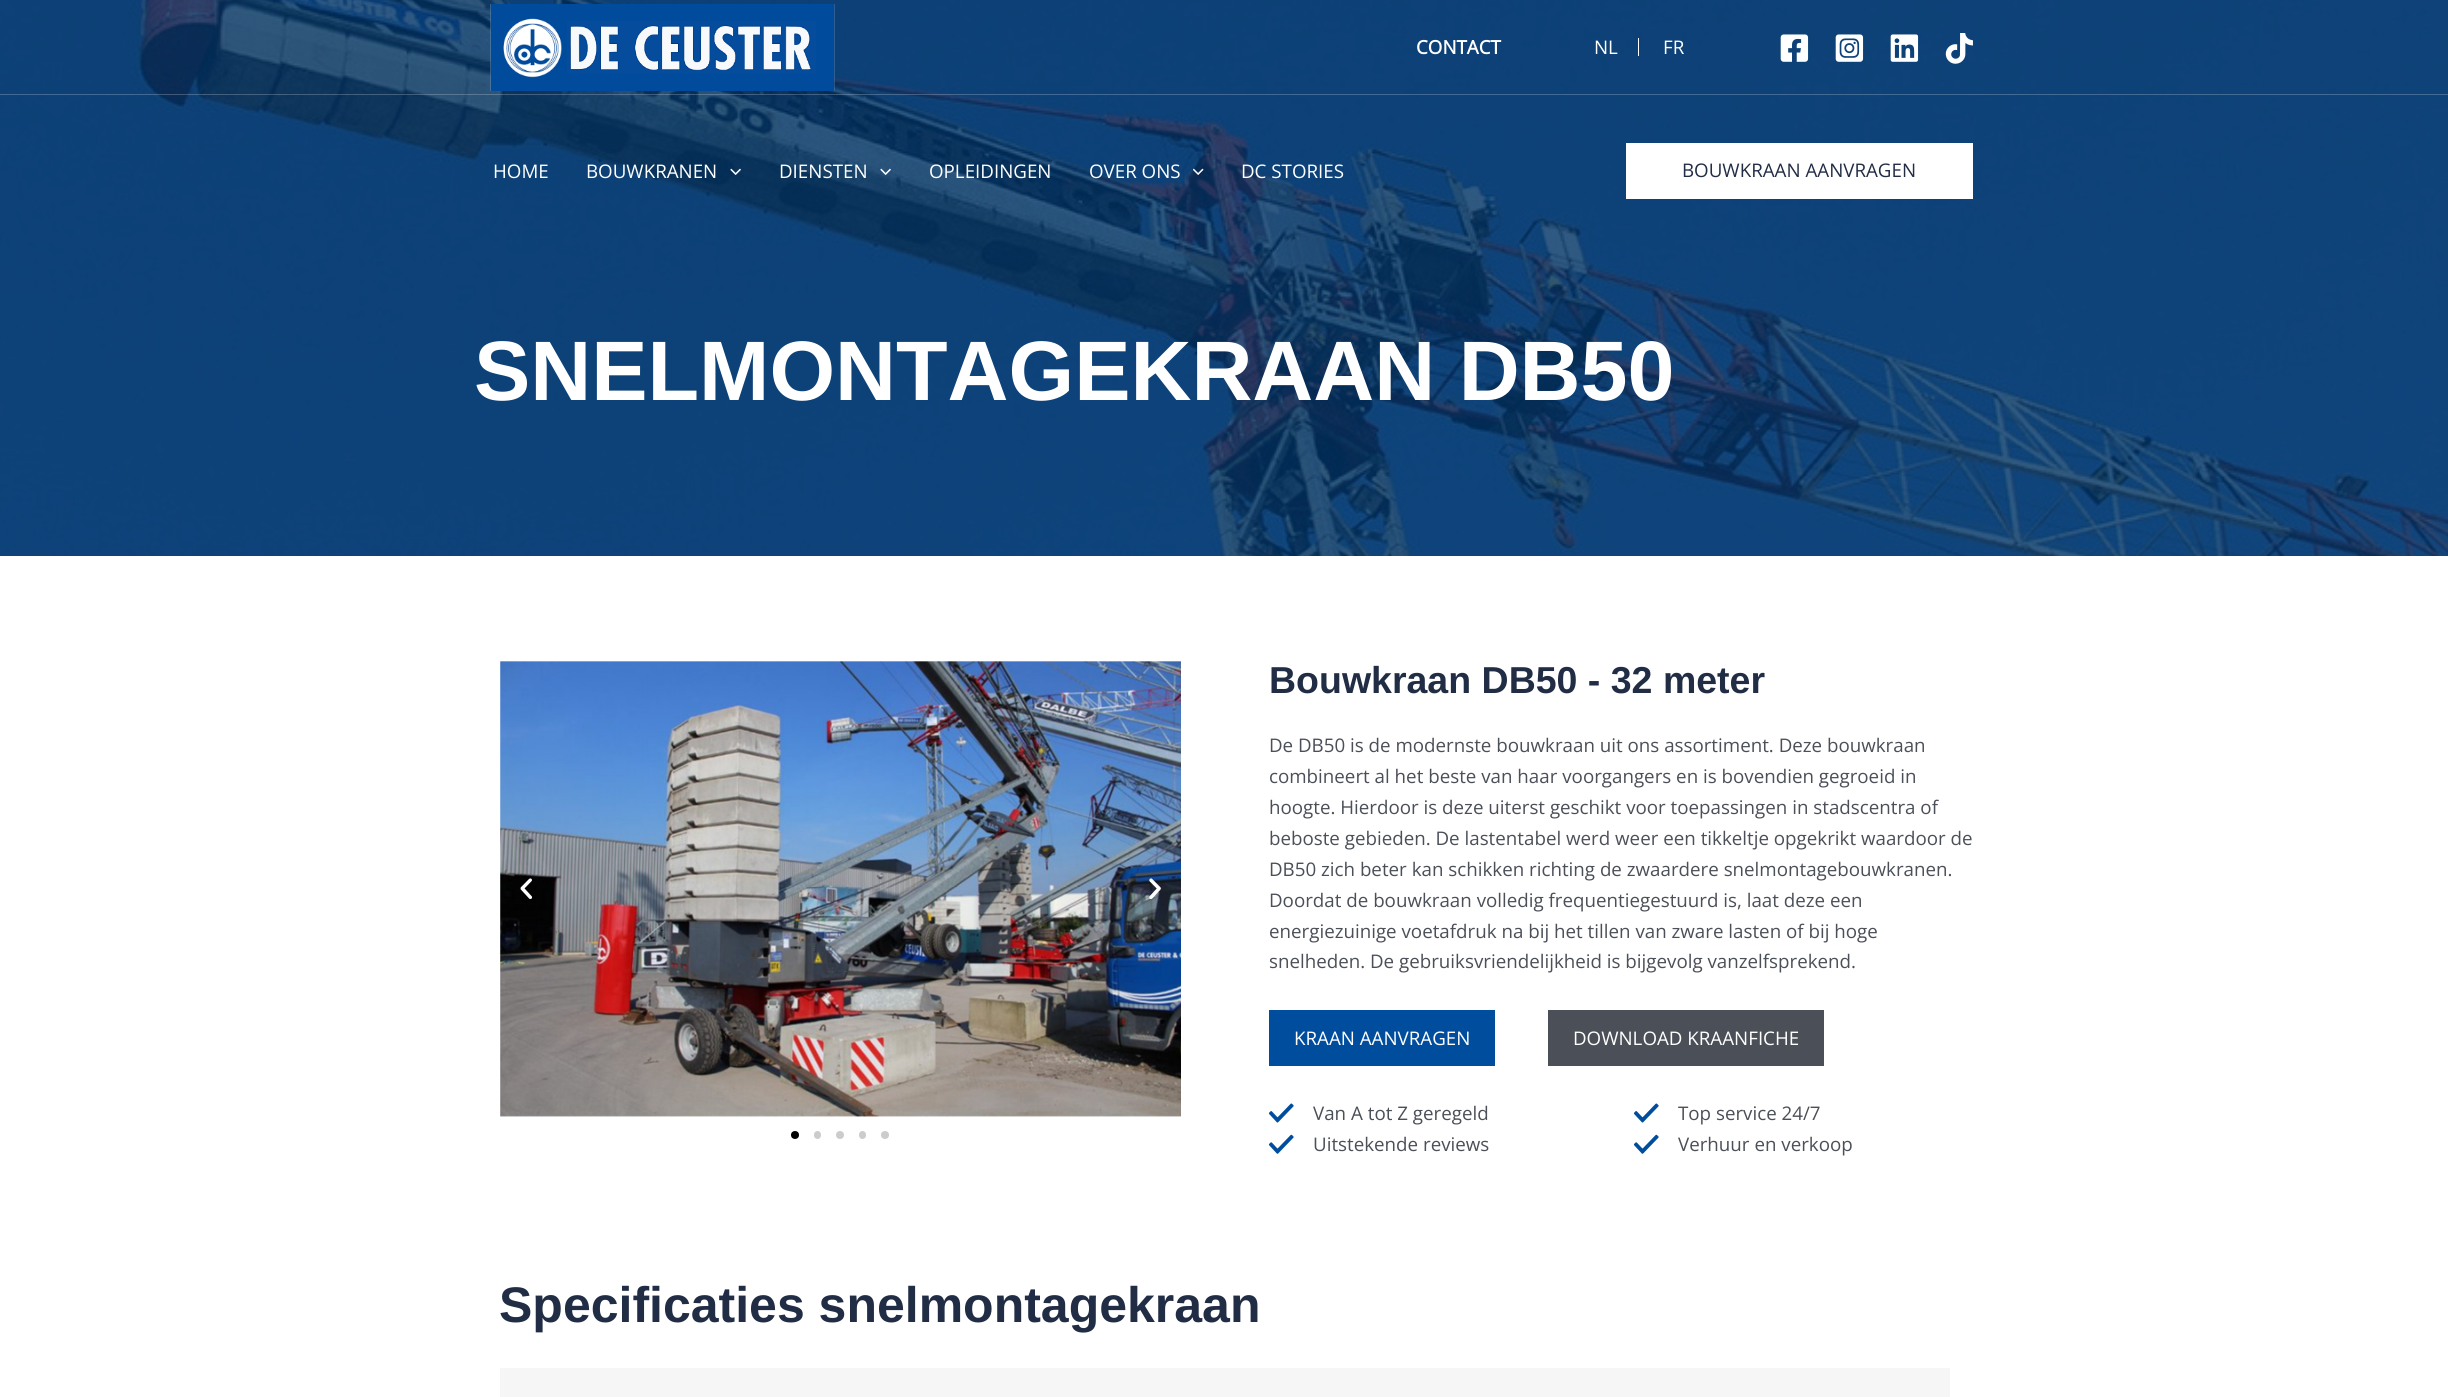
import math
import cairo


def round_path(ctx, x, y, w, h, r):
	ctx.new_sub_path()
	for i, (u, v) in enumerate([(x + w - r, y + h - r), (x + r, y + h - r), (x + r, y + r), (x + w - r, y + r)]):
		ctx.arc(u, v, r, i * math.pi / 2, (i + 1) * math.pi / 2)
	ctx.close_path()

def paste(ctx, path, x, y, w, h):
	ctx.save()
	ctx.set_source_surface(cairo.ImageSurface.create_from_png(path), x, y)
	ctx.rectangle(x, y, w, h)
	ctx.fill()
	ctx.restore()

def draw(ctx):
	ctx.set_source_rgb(1, 1, 1)
	ctx.paint()
	paste(ctx, 'media/9.png', 0, 0, 2448, 556)
	ctx.set_source_rgba(0.922, 0.922, 0.922, 0.24)
	ctx.rectangle(0, 94, 2448, 1)
	ctx.fill()
	paste(ctx, 'media/1.png', 490, 4, 345, 87)
	ctx.select_font_face('Open Sans', cairo.FONT_SLANT_NORMAL, cairo.FONT_WEIGHT_BOLD)
	ctx.set_font_size(18.75)
	ctx.set_source_rgb(1, 1, 1)
	ctx.move_to(1416, 54)
	ctx.show_text('CONTACT')
	ctx.rectangle(1638, 38, 1, 18)
	ctx.fill()
	ctx.select_font_face('Open Sans')
	ctx.move_to(1594, 54)
	ctx.show_text('NL')
	ctx.move_to(1663, 54)
	ctx.show_text('FR')
	paste(ctx, 'media/2.png', 1780, 34, 29, 28)
	paste(ctx, 'media/3.png', 1835, 34, 29, 28)
	paste(ctx, 'media/4.png', 1890, 34, 29, 28)
	paste(ctx, 'media/5.png', 1945, 33, 28, 31)
	ctx.move_to(493, 178)
	ctx.show_text('HOME')
	ctx.move_to(586, 178)
	ctx.show_text('BOUWKRANEN')
	paste(ctx, 'media/6.png', 730, 168, 11, 7)
	ctx.move_to(779, 178)
	ctx.show_text('DIENSTEN')
	paste(ctx, 'media/7.png', 880, 168, 11, 7)
	ctx.move_to(929, 178)
	ctx.show_text('OPLEIDINGEN')
	ctx.move_to(1089, 178)
	ctx.show_text('OVER ONS')
	paste(ctx, 'media/8.png', 1193, 168, 11, 7)
	ctx.move_to(1241, 178)
	ctx.show_text('DC STORIES')
	ctx.rectangle(1626, 143, 347, 56)
	ctx.fill()
	ctx.set_source_rgb(0.129, 0.176, 0.271)
	ctx.move_to(1682, 177)
	ctx.show_text('BOUWKRAAN AANVRAGEN')
	ctx.select_font_face('Liberation Sans', cairo.FONT_SLANT_NORMAL, cairo.FONT_WEIGHT_BOLD)
	ctx.set_font_size(84.4)
	ctx.set_source_rgb(1, 1, 1)
	ctx.move_to(474, 400)
	ctx.show_text('SNELMONTAGEKRAAN DB50')
	paste(ctx, 'media/10.png', 500, 661, 681, 456)
	paste(ctx, 'media/11.png', 520, 878, 13, 21)
	paste(ctx, 'media/12.png', 1149, 878, 12, 21)
	ctx.set_source_rgb(0, 0, 0)
	ctx.arc(795, 1135, 4, 0, 2 * math.pi)
	ctx.fill()
	ctx.set_source_rgb(0.8, 0.8, 0.8)
	round_path(ctx, 814, 1131, 7, 8, 3.5)
	ctx.fill()
	ctx.arc(840, 1135, 4, 0, 2 * math.pi)
	ctx.fill()
	round_path(ctx, 859, 1131, 7, 8, 3.5)
	ctx.fill()
	ctx.arc(885, 1135, 4, 0, 2 * math.pi)
	ctx.fill()
	ctx.set_font_size(37.5)
	ctx.set_source_rgb(0.129, 0.176, 0.271)
	ctx.move_to(1269, 693)
	ctx.show_text('Bouwkraan DB50 - 32 meter')
	ctx.select_font_face('Open Sans')
	ctx.set_font_size(18.75)
	ctx.set_source_rgb(0.294, 0.31, 0.345)
	for x, y, s in [
		(1269, 752, 'De DB50 is de modernste bouwkraan uit ons assortiment. Deze bouwkraan'),
		(1269, 783, 'combineert al het beste van haar voorgangers en is bovendien gegroeid in'),
		(1269, 814, 'hoogte. Hierdoor is deze uiterst geschikt voor toepassingen in stadscentra of'),
		(1269, 845, 'beboste gebieden. De lastentabel werd weer een tikkeltje opgekrikt waardoor de'),
		(1269, 876, 'DB50 zich beter kan schikken richting de zwaardere snelmontagebouwkranen.'),
		(1269, 907, 'Doordat de bouwkraan volledig frequentiegestuurd is, laat deze een'),
		(1269, 938, 'energiezuinige voetafdruk na bij het tillen van zware lasten of bij hoge'),
		(1269, 968, 'snelheden. De gebruiksvriendelijkheid is bijgevolg vanzelfsprekend.'),
	]:
		ctx.move_to(x, y)
		ctx.show_text(s)
	ctx.set_source_rgb(0, 0.302, 0.616)
	ctx.rectangle(1269, 1010, 226, 56)
	ctx.fill()
	ctx.set_source_rgb(1, 1, 1)
	ctx.move_to(1294, 1045)
	ctx.show_text('KRAAN AANVRAGEN')
	ctx.set_source_rgb(0.294, 0.31, 0.345)
	ctx.rectangle(1548, 1010, 276, 56)
	ctx.fill()
	ctx.set_source_rgb(1, 1, 1)
	ctx.move_to(1573, 1045)
	ctx.show_text('DOWNLOAD KRAANFICHE')
	paste(ctx, 'media/13.png', 1268, 1103, 26, 20)
	ctx.set_source_rgb(0.294, 0.31, 0.345)
	ctx.move_to(1313, 1120)
	ctx.show_text('Van A tot Z geregeld')
	paste(ctx, 'media/14.png', 1268, 1134, 26, 20)
	ctx.move_to(1313, 1151)
	ctx.show_text('Uitstekende reviews')
	paste(ctx, 'media/13.png', 1633, 1103, 26, 20)
	ctx.move_to(1678, 1120)
	ctx.show_text('Top service 24/7')
	paste(ctx, 'media/14.png', 1633, 1134, 26, 20)
	ctx.move_to(1678, 1151)
	ctx.show_text('Verhuur en verkoop')
	ctx.select_font_face('Liberation Sans', cairo.FONT_SLANT_NORMAL, cairo.FONT_WEIGHT_BOLD)
	ctx.set_font_size(50)
	ctx.set_source_rgb(0.129, 0.176, 0.271)
	ctx.move_to(499, 1322)
	ctx.show_text('Specificaties snelmontagekraan')
	ctx.set_source_rgb(0.961, 0.961, 0.961)
	ctx.rectangle(500, 1368, 1450, 29)
	ctx.fill()


surface = cairo.ImageSurface(cairo.FORMAT_RGB24, 2448, 1397)
ctx = cairo.Context(surface)
options = cairo.FontOptions()
options.set_hint_metrics(cairo.HINT_METRICS_OFF)
options.set_hint_style(cairo.HINT_STYLE_NONE)
ctx.set_font_options(options)
ctx.set_miter_limit(4)
draw(ctx)
surface.write_to_png('image.png')
